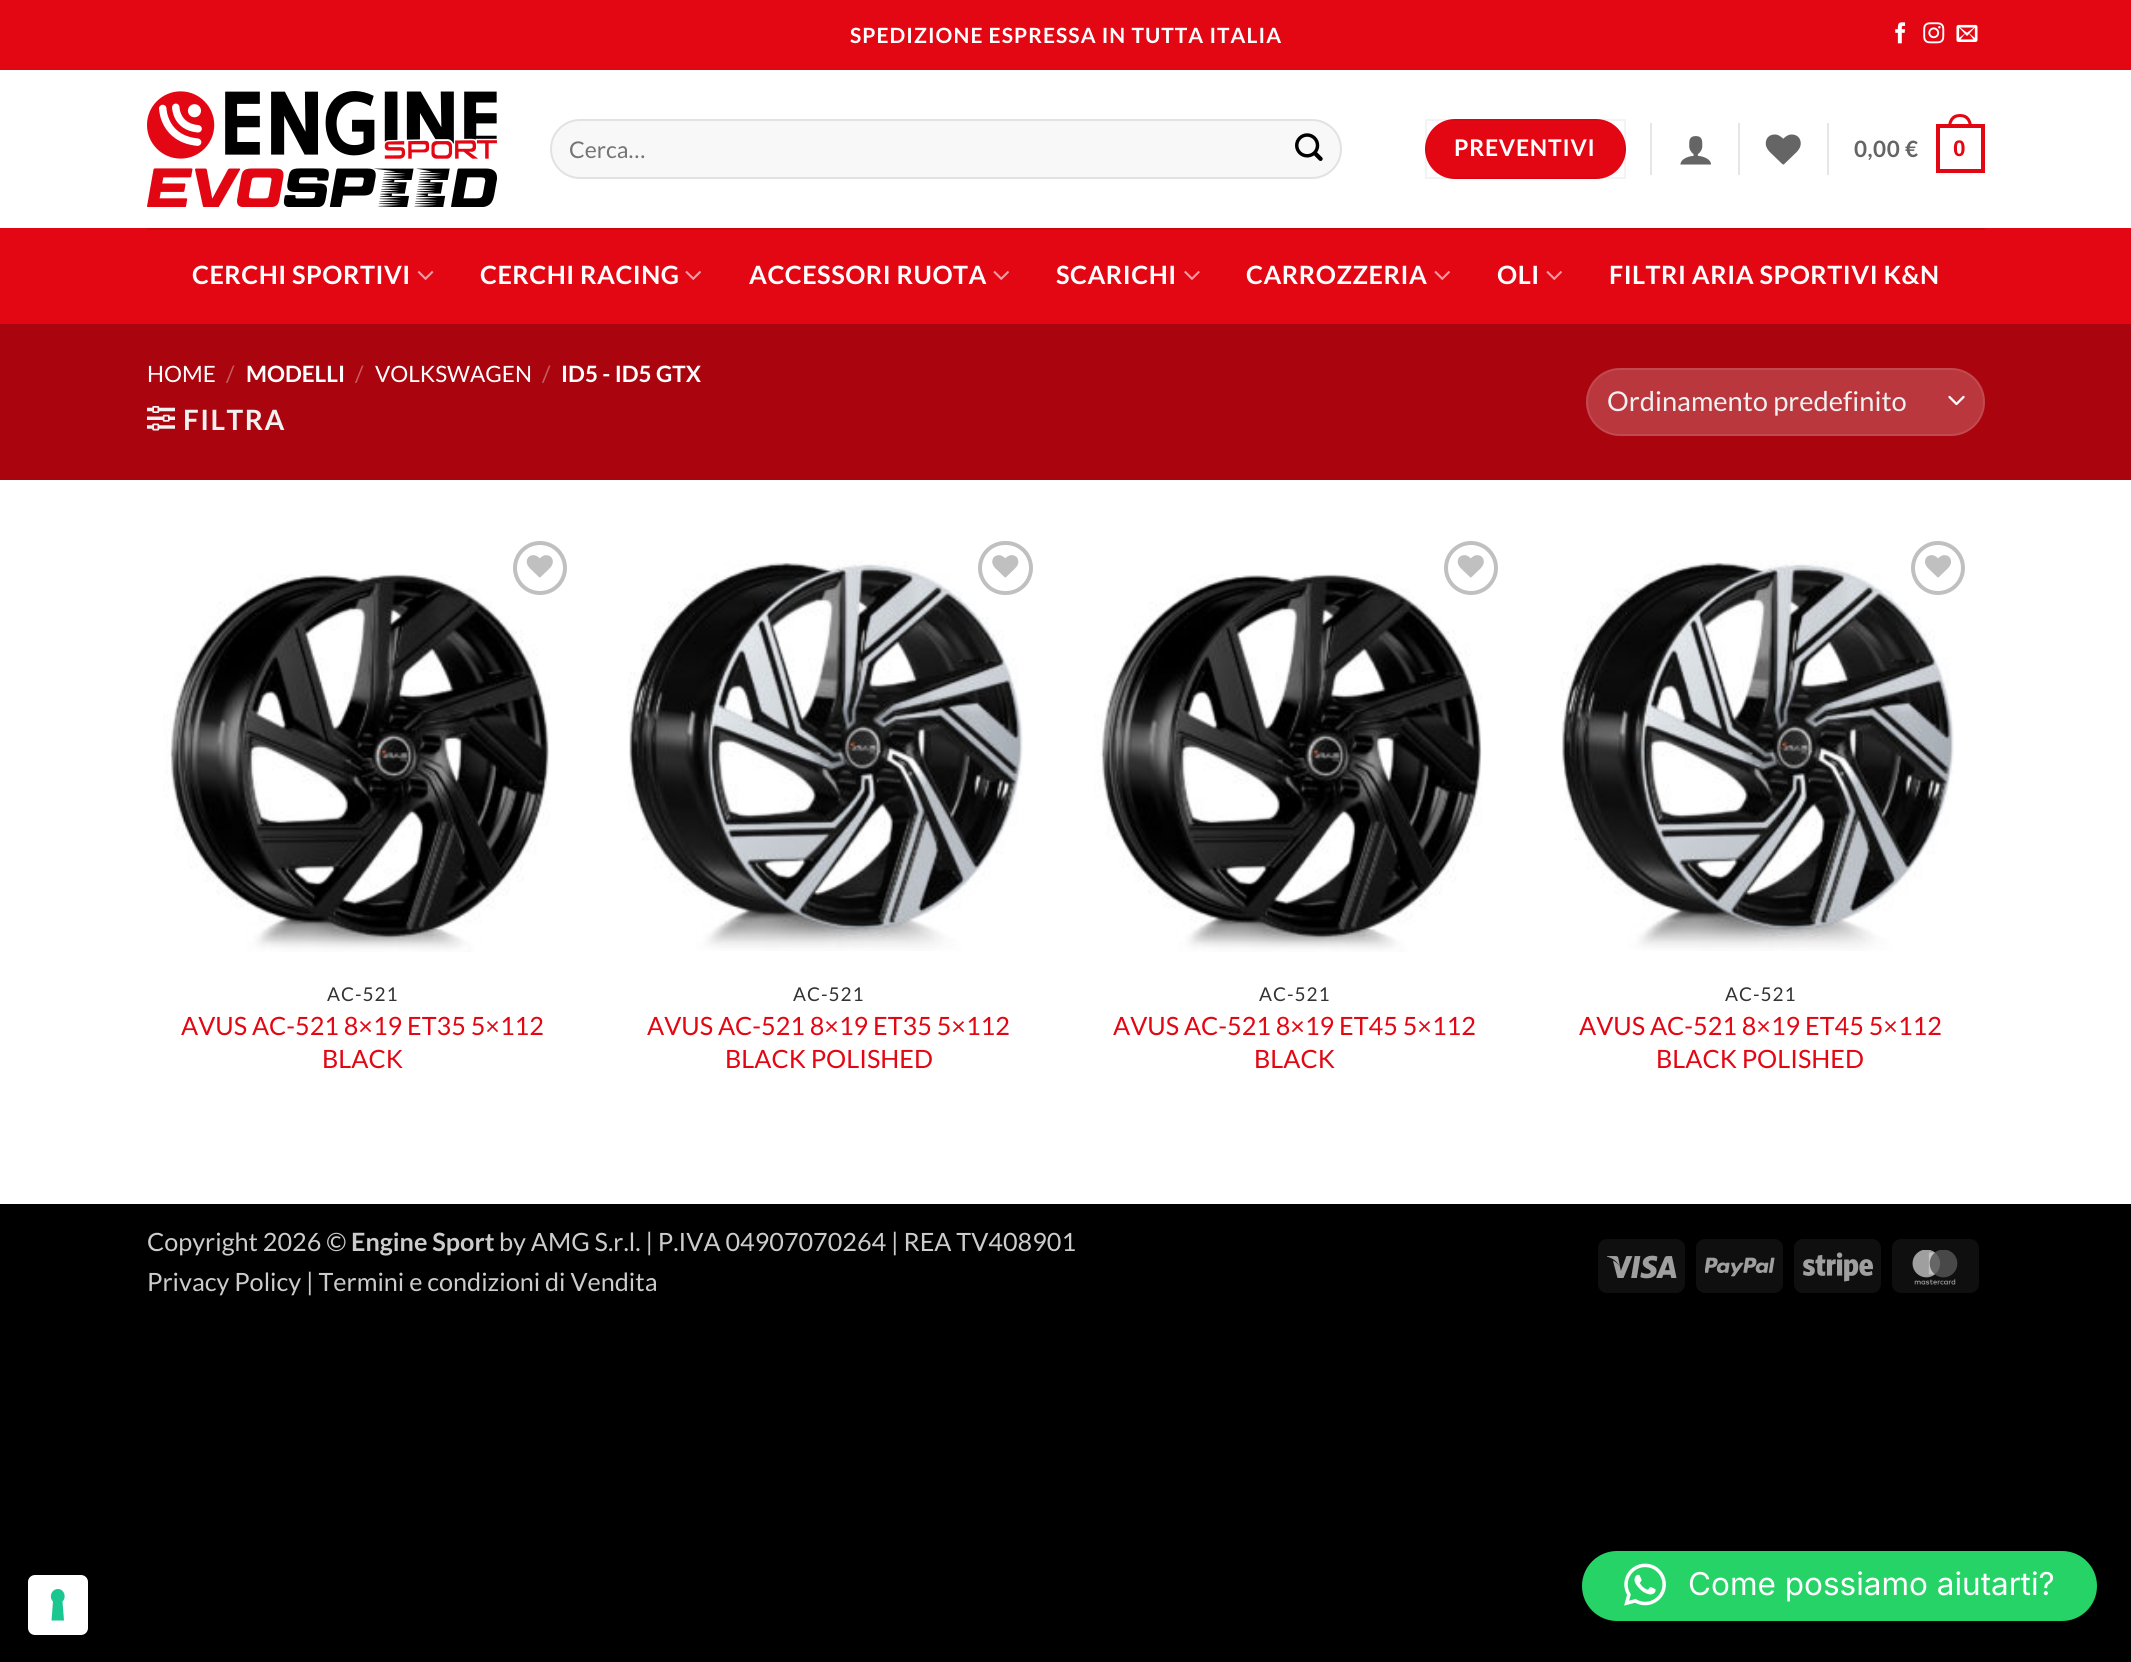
import math
import cairo


def write_spaced(ctx, x, y, s, letter, word):
	ctx.move_to(x, y)
	for ch in s:
		ctx.show_text(ch)
		ctx.rel_move_to(letter + word * (ch == ' '), 0)

def round_path(ctx, x, y, w, h, r):
	ctx.new_sub_path()
	for i, (u, v) in enumerate([(x + w - r, y + h - r), (x + r, y + h - r), (x + r, y + r), (x + w - r, y + r)]):
		ctx.arc(u, v, r, i * math.pi / 2, (i + 1) * math.pi / 2)
	ctx.close_path()

def paste(ctx, path, x, y, w, h):
	ctx.save()
	ctx.set_source_surface(cairo.ImageSurface.create_from_png(path), x, y)
	ctx.rectangle(x, y, w, h)
	ctx.fill()
	ctx.restore()

def draw(ctx):
	ctx.set_source_rgb(0, 0, 0)
	ctx.paint()
	ctx.set_source_rgb(1, 1, 1)
	ctx.rectangle(0, 70, 2131, 1134)
	ctx.fill()
	ctx.set_source_rgb(0.89, 0.024, 0.075)
	ctx.rectangle(0, 0, 2131, 70)
	ctx.fill()
	ctx.select_font_face('Lato', cairo.FONT_SLANT_NORMAL, cairo.FONT_WEIGHT_BOLD)
	ctx.set_font_size(21)
	ctx.set_source_rgb(1, 1, 1)
	write_spaced(ctx, 850, 43, 'SPEDIZIONE ESPRESSA IN TUTTA ITALIA', 1.05, 0)
	paste(ctx, 'media/1.png', 1895, 22, 11, 22)
	paste(ctx, 'media/2.png', 1923, 22, 22, 22)
	paste(ctx, 'media/3.png', 1956, 24, 22, 18)
	paste(ctx, 'media/4.png', 147, 91, 350, 116)
	ctx.set_source_rgb(0.969, 0.969, 0.969)
	round_path(ctx, 550, 119, 792, 60, 30)
	ctx.fill()
	round_path(ctx, 551, 120, 790, 58, 29)
	ctx.set_source_rgba(0, 0, 0, 0.09)
	ctx.stroke()
	ctx.select_font_face('Lato')
	ctx.set_font_size(23)
	ctx.set_source_rgb(0.459, 0.459, 0.459)
	ctx.move_to(569, 158)
	ctx.show_text('Cerca…')
	paste(ctx, 'media/5.png', 1295, 133, 28, 28)
	ctx.set_source_rgb(0.89, 0.024, 0.075)
	round_path(ctx, 1425, 119, 201, 60, 30)
	ctx.fill()
	ctx.rectangle(1426, 120, 199, 58)
	ctx.set_source_rgba(0, 0, 0, 0.05)
	ctx.stroke()
	ctx.select_font_face('Lato', cairo.FONT_SLANT_NORMAL, cairo.FONT_WEIGHT_BOLD)
	ctx.set_source_rgb(1, 1, 1)
	write_spaced(ctx, 1454, 156, 'PREVENTIVI', 0.75, 0)
	ctx.set_source_rgb(0.902, 0.902, 0.902)
	ctx.rectangle(1650, 123, 2, 52)
	ctx.fill()
	paste(ctx, 'media/6.png', 1680, 136, 31, 29)
	ctx.rectangle(1738, 123, 2, 52)
	ctx.fill()
	paste(ctx, 'media/7.png', 1765, 134, 36, 31)
	ctx.rectangle(1827, 123, 2, 52)
	ctx.fill()
	ctx.set_font_size(22.5)
	ctx.set_source_rgb(0.396, 0.396, 0.396)
	write_spaced(ctx, 1854, 157, '0,00 €', 0.5, 0)
	ctx.rectangle(1938, 126, 45, 45)
	ctx.set_source_rgb(0.89, 0.024, 0.075)
	ctx.set_line_width(4)
	ctx.stroke()
	ctx.set_fill_rule(cairo.FILL_RULE_EVEN_ODD)
	ctx.new_path()
	ctx.move_to(1960, 114)
	ctx.curve_to(1968.5, 114, 1972, 120, 1972, 128)
	ctx.line_to(1948, 128)
	ctx.curve_to(1948, 120, 1951.5, 114, 1960, 114)
	ctx.close_path()
	ctx.move_to(1960, 117)
	ctx.curve_to(1966.5, 117, 1969, 122, 1969, 128)
	ctx.line_to(1951, 128)
	ctx.curve_to(1951, 122, 1953.5, 117, 1960, 117)
	ctx.close_path()
	ctx.fill()
	ctx.select_font_face('Liberation Sans', cairo.FONT_SLANT_NORMAL, cairo.FONT_WEIGHT_BOLD)
	write_spaced(ctx, 1953, 156, '0', 0.5, 0)
	ctx.rectangle(0, 228, 2131, 96)
	ctx.fill()
	ctx.set_source_rgb(0.8, 0.02, 0.067)
	ctx.rectangle(147, 228, 1838, 2)
	ctx.fill()
	ctx.select_font_face('Lato', cairo.FONT_SLANT_NORMAL, cairo.FONT_WEIGHT_BOLD)
	ctx.set_font_size(25.2)
	ctx.set_source_rgb(1, 1, 1)
	write_spaced(ctx, 192, 284, 'CERCHI SPORTIVI', 0.5, 0)
	paste(ctx, 'media/8.png', 417, 271, 17, 9)
	write_spaced(ctx, 480, 284, 'CERCHI RACING', 0.5, 0)
	paste(ctx, 'media/9.png', 685, 271, 16, 9)
	write_spaced(ctx, 749, 284, 'ACCESSORI RUOTA', 0.5, 0)
	paste(ctx, 'media/9.png', 993, 271, 16, 9)
	write_spaced(ctx, 1056, 284, 'SCARICHI', 0.5, 0)
	paste(ctx, 'media/10.png', 1184, 271, 16, 9)
	write_spaced(ctx, 1246, 284, 'CARROZZERIA', 0.5, 0)
	paste(ctx, 'media/9.png', 1434, 271, 16, 9)
	write_spaced(ctx, 1497, 284, 'OLI', 0.5, 0)
	paste(ctx, 'media/9.png', 1546, 271, 16, 9)
	write_spaced(ctx, 1609, 284, 'FILTRI ARIA SPORTIVI K&N', 0.5, 0)
	ctx.set_source_rgb(0.667, 0.02, 0.055)
	ctx.rectangle(0, 324, 2131, 156)
	ctx.fill()
	ctx.select_font_face('Lato')
	ctx.set_font_size(22.5)
	ctx.set_source_rgb(1, 1, 1)
	ctx.move_to(147, 382)
	ctx.show_text('HOME')
	ctx.set_source_rgb(0.784, 0.365, 0.384)
	ctx.move_to(226, 382)
	ctx.show_text('/')
	ctx.select_font_face('Lato', cairo.FONT_SLANT_NORMAL, cairo.FONT_WEIGHT_BOLD)
	ctx.set_source_rgb(1, 1, 1)
	ctx.move_to(246, 382)
	ctx.show_text('MODELLI')
	ctx.select_font_face('Lato')
	ctx.set_source_rgb(0.784, 0.365, 0.384)
	ctx.move_to(355, 382)
	ctx.show_text('/')
	ctx.set_source_rgb(1, 1, 1)
	ctx.move_to(375, 382)
	ctx.show_text('VOLKSWAGEN')
	ctx.set_source_rgb(0.784, 0.365, 0.384)
	ctx.move_to(542, 382)
	ctx.show_text('/')
	ctx.select_font_face('Lato', cairo.FONT_SLANT_NORMAL, cairo.FONT_WEIGHT_BOLD)
	ctx.set_source_rgb(1, 1, 1)
	ctx.move_to(561, 382)
	ctx.show_text('ID5 - ID5 GTX')
	paste(ctx, 'media/11.png', 147, 406, 28, 25)
	ctx.set_font_size(28)
	ctx.set_source_rgb(0.945, 0.945, 0.945)
	write_spaced(ctx, 183, 430, 'FILTRA', 1.5, 0)
	ctx.set_source_rgb(0.733, 0.216, 0.243)
	round_path(ctx, 1586, 368, 399, 68, 34)
	ctx.fill()
	ctx.new_path()
	ctx.move_to(1949.5, 397)
	ctx.line_to(1956.5, 404)
	ctx.line_to(1963.5, 397)
	ctx.set_source_rgb(1, 1, 1)
	ctx.set_line_width(2.3)
	ctx.set_line_cap(cairo.LINE_CAP_ROUND)
	ctx.set_line_join(cairo.LINE_JOIN_ROUND)
	ctx.stroke()
	round_path(ctx, 1587, 369, 397, 66, 33)
	ctx.set_source_rgba(1, 1, 1, 0.09)
	ctx.set_line_width(2)
	ctx.set_line_cap(cairo.LINE_CAP_BUTT)
	ctx.set_line_join(cairo.LINE_JOIN_MITER)
	ctx.stroke()
	ctx.select_font_face('Lato')
	ctx.set_font_size(27.25)
	ctx.set_source_rgb(0.945, 0.945, 0.945)
	ctx.move_to(1607, 411)
	ctx.show_text('Ordinamento predefinito')
	paste(ctx, 'media/13.png', 163, 574, 387, 378)
	ctx.arc(540, 568, 25, 0, 2 * math.pi)
	ctx.set_source_rgb(0.753, 0.753, 0.753)
	ctx.set_line_width(4)
	ctx.stroke()
	paste(ctx, 'media/12.png', 526, 555, 27, 23)
	ctx.set_font_size(19)
	ctx.set_source_rgb(0.2, 0.2, 0.2)
	write_spaced(ctx, 327, 1001, 'AC-521', 1, 0)
	ctx.set_font_size(25.2)
	ctx.set_source_rgb(0.89, 0.024, 0.075)
	ctx.move_to(181, 1035)
	ctx.show_text('AVUS AC-521 8×19 ET35 5×112')
	ctx.move_to(322, 1068)
	ctx.show_text('BLACK')
	paste(ctx, 'media/15.png', 627, 560, 396, 391)
	round_path(ctx, 980, 543, 51, 50, 25)
	ctx.set_source_rgb(0.753, 0.753, 0.753)
	ctx.stroke()
	paste(ctx, 'media/14.png', 992, 555, 27, 23)
	ctx.set_font_size(19)
	ctx.set_source_rgb(0.2, 0.2, 0.2)
	write_spaced(ctx, 793, 1001, 'AC-521', 1, 0)
	ctx.set_font_size(25.2)
	ctx.set_source_rgb(0.89, 0.024, 0.075)
	ctx.move_to(647, 1035)
	ctx.show_text('AVUS AC-521 8×19 ET35 5×112')
	ctx.move_to(725, 1068)
	ctx.show_text('BLACK POLISHED')
	paste(ctx, 'media/16.png', 1094, 574, 388, 378)
	ctx.arc(1471, 568, 25, 0, 2 * math.pi)
	ctx.set_source_rgb(0.753, 0.753, 0.753)
	ctx.stroke()
	paste(ctx, 'media/12.png', 1457, 555, 27, 23)
	ctx.set_font_size(19)
	ctx.set_source_rgb(0.2, 0.2, 0.2)
	write_spaced(ctx, 1259, 1001, 'AC-521', 1, 0)
	ctx.set_font_size(25.2)
	ctx.set_source_rgb(0.89, 0.024, 0.075)
	ctx.move_to(1113, 1035)
	ctx.show_text('AVUS AC-521 8×19 ET45 5×112')
	ctx.move_to(1254, 1068)
	ctx.show_text('BLACK')
	paste(ctx, 'media/18.png', 1560, 560, 394, 391)
	ctx.arc(1938, 568, 25, 0, 2 * math.pi)
	ctx.set_source_rgb(0.753, 0.753, 0.753)
	ctx.stroke()
	paste(ctx, 'media/17.png', 1925, 555, 26, 23)
	ctx.set_font_size(19)
	ctx.set_source_rgb(0.2, 0.2, 0.2)
	write_spaced(ctx, 1725, 1001, 'AC-521', 1, 0)
	ctx.set_font_size(25.2)
	ctx.set_source_rgb(0.89, 0.024, 0.075)
	ctx.move_to(1579, 1035)
	ctx.show_text('AVUS AC-521 8×19 ET45 5×112')
	ctx.move_to(1656, 1068)
	ctx.show_text('BLACK POLISHED')
	ctx.set_source_rgb(0.8, 0.8, 0.8)
	ctx.move_to(147, 1251)
	ctx.show_text('Copyright 2026 ©')
	ctx.select_font_face('Lato', cairo.FONT_SLANT_NORMAL, cairo.FONT_WEIGHT_BOLD)
	ctx.move_to(351, 1251)
	ctx.show_text('Engine Sport')
	ctx.select_font_face('Lato')
	ctx.move_to(499, 1251)
	ctx.show_text('by AMG S.r.l. | P.IVA 04907070264 | REA TV408901')
	ctx.move_to(147, 1291)
	ctx.show_text('Privacy Policy | Termini e condizioni di Vendita')
	ctx.set_source_rgb(0.059, 0.059, 0.059)
	round_path(ctx, 1598, 1239, 87, 54, 9)
	ctx.fill()
	paste(ctx, 'media/19.png', 1607, 1255, 70, 24)
	round_path(ctx, 1696, 1239, 87, 54, 9)
	ctx.fill()
	paste(ctx, 'media/20.png', 1705, 1257, 70, 20)
	round_path(ctx, 1794, 1239, 87, 54, 9)
	ctx.fill()
	paste(ctx, 'media/21.png', 1803, 1252, 70, 30)
	round_path(ctx, 1892, 1239, 87, 54, 9)
	ctx.fill()
	paste(ctx, 'media/22.png', 1912, 1250, 46, 35)
	ctx.set_source_rgb(1, 1, 1)
	round_path(ctx, 28, 1575, 60, 60, 7)
	ctx.fill()
	ctx.set_source_rgb(0.11, 0.776, 0.569)
	ctx.new_path()
	ctx.move_to(58, 1589)
	ctx.curve_to(64, 1589, 67, 1597, 62.5, 1601.5)
	ctx.line_to(64, 1620.5)
	ctx.line_to(51.5, 1620.5)
	ctx.line_to(53, 1601.5)
	ctx.curve_to(48.5, 1597, 51.5, 1589, 58, 1589)
	ctx.close_path()
	ctx.fill()
	ctx.set_source_rgb(0.145, 0.827, 0.4)
	round_path(ctx, 1582, 1551, 515, 70, 35)
	ctx.fill()
	paste(ctx, 'media/23.png', 1624, 1563, 42, 43)
	ctx.select_font_face('Inter')
	ctx.set_font_size(31.5)
	ctx.set_source_rgb(1, 1, 1)
	ctx.move_to(1688, 1595)
	ctx.show_text('Come possiamo aiutarti?')


surface = cairo.ImageSurface(cairo.FORMAT_RGB24, 2131, 1662)
ctx = cairo.Context(surface)
options = cairo.FontOptions()
options.set_hint_metrics(cairo.HINT_METRICS_OFF)
options.set_hint_style(cairo.HINT_STYLE_NONE)
ctx.set_font_options(options)
ctx.set_miter_limit(4)
draw(ctx)
surface.write_to_png('image.png')
